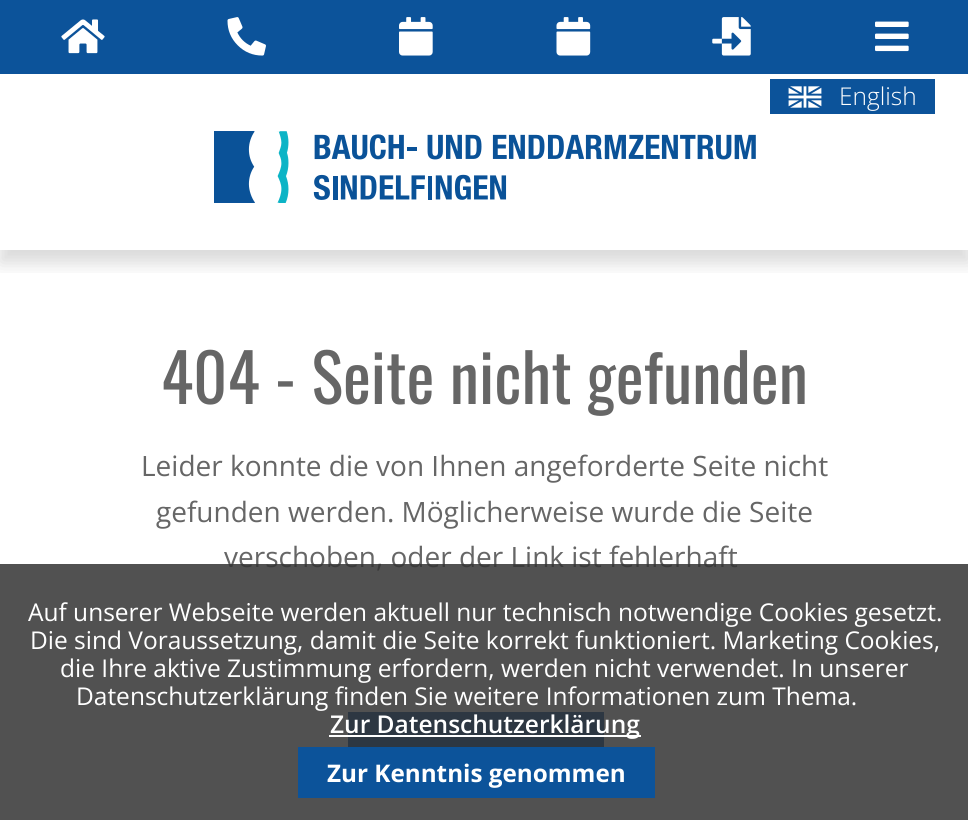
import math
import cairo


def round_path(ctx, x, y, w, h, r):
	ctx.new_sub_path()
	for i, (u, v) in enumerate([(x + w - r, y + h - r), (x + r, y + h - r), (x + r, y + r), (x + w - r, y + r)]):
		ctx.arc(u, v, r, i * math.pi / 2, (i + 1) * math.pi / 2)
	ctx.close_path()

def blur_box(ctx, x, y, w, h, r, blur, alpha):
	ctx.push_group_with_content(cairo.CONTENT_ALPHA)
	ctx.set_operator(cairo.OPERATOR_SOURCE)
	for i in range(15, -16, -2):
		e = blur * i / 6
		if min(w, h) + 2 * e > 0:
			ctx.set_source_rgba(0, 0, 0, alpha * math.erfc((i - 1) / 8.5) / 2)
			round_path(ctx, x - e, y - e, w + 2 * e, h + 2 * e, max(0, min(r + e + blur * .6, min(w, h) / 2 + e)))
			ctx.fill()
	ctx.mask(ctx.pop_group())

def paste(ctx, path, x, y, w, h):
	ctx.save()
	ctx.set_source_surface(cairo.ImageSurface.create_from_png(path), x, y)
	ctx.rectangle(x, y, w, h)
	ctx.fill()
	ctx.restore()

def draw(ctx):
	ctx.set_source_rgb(1, 1, 1)
	ctx.paint()
	ctx.save()
	ctx.rectangle(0, 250, 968, 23)
	ctx.clip()
	ctx.set_source_rgb(0, 0, 0)
	blur_box(ctx, 0, 91, 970, 172, 0, 9, 0.15)
	ctx.restore()
	ctx.set_source_rgb(0.047, 0.325, 0.604)
	ctx.rectangle(0, 0, 968, 74)
	ctx.fill()
	paste(ctx, 'media/1.png', 61, 19, 44, 35)
	paste(ctx, 'media/2.png', 227, 17, 39, 39)
	paste(ctx, 'media/3.png', 399, 17, 34, 39)
	paste(ctx, 'media/4.png', 556, 17, 35, 39)
	paste(ctx, 'media/5.png', 712, 17, 39, 39)
	paste(ctx, 'media/6.png', 875, 21, 34, 31)
	ctx.rectangle(770, 79, 165, 35)
	ctx.fill()
	paste(ctx, 'media/7.png', 788, 86, 34, 22)
	ctx.select_font_face('Open Sans Light')
	ctx.set_font_size(24.5)
	ctx.set_source_rgb(1, 1, 1)
	ctx.move_to(839, 105)
	ctx.show_text('English')
	paste(ctx, 'media/8.png', 214, 131, 542, 72)
	ctx.select_font_face('Oswald')
	ctx.set_font_size(66.5)
	ctx.set_source_rgb(0.4, 0.4, 0.4)
	ctx.move_to(161, 404)
	ctx.show_text('404 - Seite nicht gefunden')
	ctx.select_font_face('Open Sans')
	ctx.set_font_size(28)
	for x, y, s in [
		(141, 476, 'Leider konnte die von Ihnen angeforderte Seite nicht'),
		(156, 522, 'gefunden werden. Möglicherweise wurde die Seite'),
		(224, 567, 'verschoben, oder der Link ist fehlerhaft'),
	]:
		ctx.move_to(x, y)
		ctx.show_text(s)
	ctx.set_source_rgb(0.047, 0.325, 0.604)
	ctx.rectangle(348, 712, 256, 35)
	ctx.fill()
	ctx.set_source_rgba(0.2, 0.2, 0.2, 0.85)
	ctx.rectangle(0, 564, 968, 256)
	ctx.fill()
	ctx.set_font_size(24.5)
	ctx.set_source_rgb(1, 1, 1)
	for x, y, s in [
		(28, 621, 'Auf unserer Webseite werden aktuell nur technisch notwendige Cookies gesetzt.'),
		(30, 649, 'Die sind Voraussetzung, damit die Seite korrekt funktioniert. Marketing Cookies,'),
		(60, 677, 'die Ihre aktive Zustimmung erfordern, werden nicht verwendet. In unserer'),
		(76, 705, 'Datenschutzerklärung finden Sie weitere Informationen zum Thema.'),
	]:
		ctx.move_to(x, y)
		ctx.show_text(s)
	ctx.rectangle(329, 735, 312, 2)
	ctx.fill()
	ctx.select_font_face('Open Sans SemiBold')
	ctx.move_to(330, 733)
	ctx.show_text('Zur Datenschutzerklärung')
	ctx.set_source_rgb(0.047, 0.325, 0.604)
	ctx.rectangle(298, 747, 357, 51)
	ctx.fill()
	ctx.select_font_face('Open Sans', cairo.FONT_SLANT_NORMAL, cairo.FONT_WEIGHT_BOLD)
	ctx.set_font_size(24.25)
	ctx.set_source_rgb(1, 1, 1)
	ctx.move_to(327, 782)
	ctx.show_text('Zur Kenntnis genommen')


surface = cairo.ImageSurface(cairo.FORMAT_RGB24, 968, 820)
ctx = cairo.Context(surface)
options = cairo.FontOptions()
options.set_hint_metrics(cairo.HINT_METRICS_OFF)
options.set_hint_style(cairo.HINT_STYLE_NONE)
ctx.set_font_options(options)
ctx.set_miter_limit(4)
draw(ctx)
surface.write_to_png('image.png')
